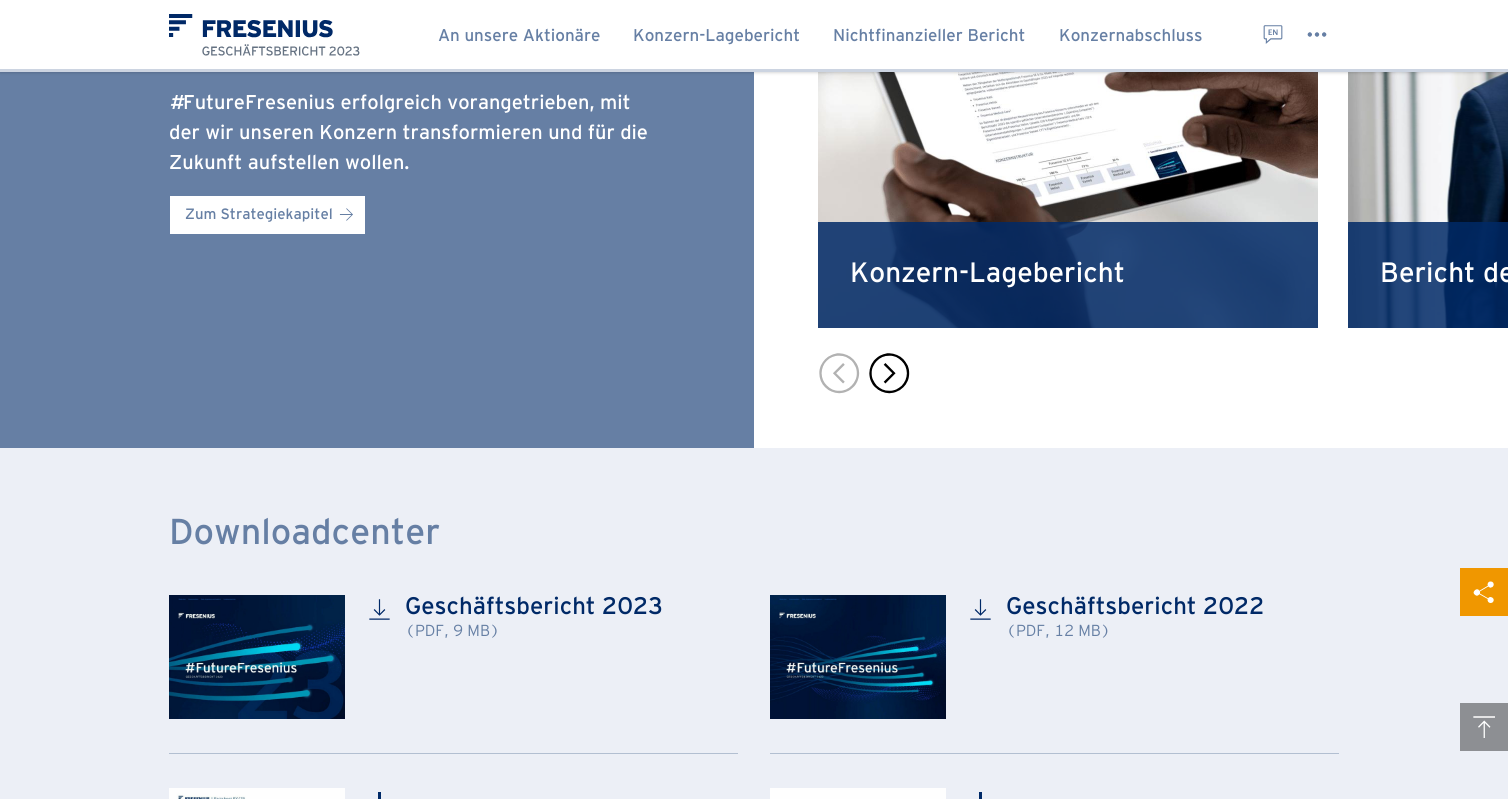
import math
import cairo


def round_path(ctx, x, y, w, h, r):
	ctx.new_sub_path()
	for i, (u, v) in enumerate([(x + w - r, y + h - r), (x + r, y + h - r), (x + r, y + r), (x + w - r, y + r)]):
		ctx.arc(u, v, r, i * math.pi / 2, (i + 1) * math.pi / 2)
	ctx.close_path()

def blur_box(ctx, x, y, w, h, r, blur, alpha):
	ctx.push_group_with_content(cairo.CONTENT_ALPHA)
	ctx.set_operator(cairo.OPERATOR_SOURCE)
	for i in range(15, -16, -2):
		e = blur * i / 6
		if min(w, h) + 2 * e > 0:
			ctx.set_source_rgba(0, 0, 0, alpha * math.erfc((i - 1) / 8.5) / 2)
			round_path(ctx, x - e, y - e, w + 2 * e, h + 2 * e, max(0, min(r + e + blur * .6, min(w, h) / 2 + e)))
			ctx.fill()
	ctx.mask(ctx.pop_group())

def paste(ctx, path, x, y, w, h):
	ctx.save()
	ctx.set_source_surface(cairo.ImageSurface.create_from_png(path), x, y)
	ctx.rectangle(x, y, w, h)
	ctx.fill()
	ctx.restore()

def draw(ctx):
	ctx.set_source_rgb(1, 1, 1)
	ctx.paint()
	ctx.set_source_rgb(0.4, 0.498, 0.643)
	ctx.rectangle(0, 72, 754, 376)
	ctx.fill()
	paste(ctx, 'media/5.png', 818, 72, 500, 256)
	paste(ctx, 'media/6.png', 1348, 72, 160, 256)
	ctx.set_source_rgb(0, 0, 0)
	blur_box(ctx, 0, 1, 1508, 72, 0, 1, 0.06)
	blur_box(ctx, 0, 1, 1508, 72, 0, 1.5, 0.1)
	ctx.set_source_rgb(1, 1, 1)
	ctx.rectangle(0, 0, 1508, 69)
	ctx.fill()
	ctx.set_source_rgb(0.8, 0.831, 0.882)
	ctx.rectangle(0, 69, 1508, 3)
	ctx.fill()
	paste(ctx, 'media/1.png', 169, 14, 191, 42)
	ctx.select_font_face('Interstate')
	ctx.set_font_size(17)
	ctx.set_source_rgb(0.4, 0.498, 0.643)
	for x, y, s in [
		(438, 41, 'An unsere Aktionäre'),
		(633, 41, 'Konzern-Lagebericht'),
		(833, 41, 'Nichtfinanzieller Bericht'),
		(1059, 41, 'Konzernabschluss'),
	]:
		ctx.move_to(x, y)
		ctx.show_text(s)
	paste(ctx, 'media/2.png', 1263, 25, 20, 19)
	paste(ctx, 'media/3.png', 1307, 32, 20, 5)
	ctx.set_font_size(20)
	ctx.set_source_rgb(1, 1, 1)
	ctx.move_to(183, 109)
	ctx.show_text('FutureFresenius erfolgreich vorangetrieben, mit')
	ctx.select_font_face('Interstate', cairo.FONT_SLANT_ITALIC)
	ctx.move_to(169, 109)
	ctx.show_text('#')
	ctx.select_font_face('Interstate')
	ctx.move_to(169, 139)
	ctx.show_text('der wir unseren Konzern transformieren und für die')
	ctx.move_to(169, 169)
	ctx.show_text('Zukunft aufstellen wollen.')
	ctx.rectangle(170, 196, 195, 38)
	ctx.fill()
	ctx.set_font_size(15)
	ctx.set_source_rgb(0.4, 0.498, 0.643)
	ctx.move_to(185, 219)
	ctx.show_text('Zum Strategiekapitel')
	paste(ctx, 'media/4.png', 339, 208, 14, 13)
	ctx.set_source_rgba(0, 0.161, 0.404, 0.85)
	ctx.rectangle(818, 222, 500, 106)
	ctx.fill()
	ctx.set_font_size(28)
	ctx.set_source_rgb(1, 1, 1)
	ctx.move_to(850, 282)
	ctx.show_text('Konzern-Lagebericht')
	ctx.set_source_rgba(0, 0.161, 0.404, 0.85)
	ctx.rectangle(1348, 222, 160, 106)
	ctx.fill()
	ctx.set_source_rgb(1, 1, 1)
	ctx.move_to(1380, 282)
	ctx.show_text('Bericht de')
	paste(ctx, 'media/7.png', 819, 353, 41, 41)
	paste(ctx, 'media/8.png', 869, 353, 41, 41)
	ctx.set_source_rgb(0.922, 0.937, 0.961)
	ctx.rectangle(0, 448, 1508, 351)
	ctx.fill()
	ctx.set_font_size(36)
	ctx.set_source_rgb(0.4, 0.498, 0.643)
	ctx.move_to(169, 544)
	ctx.show_text('Downloadcenter')
	ctx.set_source_rgb(0.698, 0.749, 0.82)
	ctx.rectangle(169, 753, 569, 1)
	ctx.fill()
	paste(ctx, 'media/9.png', 169, 595, 176, 124)
	paste(ctx, 'media/10.png', 369, 599, 21, 21)
	ctx.set_font_size(24)
	ctx.set_source_rgb(0, 0.161, 0.404)
	ctx.move_to(405, 614)
	ctx.show_text('Geschäftsbericht 2023')
	ctx.select_font_face('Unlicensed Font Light')
	ctx.set_font_size(16)
	ctx.set_source_rgb(0.4, 0.498, 0.643)
	ctx.move_to(405, 636)
	ctx.show_text('(PDF, 9 MB)')
	ctx.set_source_rgb(0.698, 0.749, 0.82)
	ctx.rectangle(770, 753, 569, 1)
	ctx.fill()
	paste(ctx, 'media/11.png', 770, 595, 176, 124)
	paste(ctx, 'media/10.png', 970, 599, 21, 21)
	ctx.select_font_face('Interstate')
	ctx.set_font_size(24)
	ctx.set_source_rgb(0, 0.161, 0.404)
	ctx.move_to(1006, 614)
	ctx.show_text('Geschäftsbericht 2022')
	ctx.select_font_face('Unlicensed Font Light')
	ctx.set_font_size(16)
	ctx.set_source_rgb(0.4, 0.498, 0.643)
	ctx.move_to(1006, 636)
	ctx.show_text('(PDF, 12 MB)')
	paste(ctx, 'media/12.png', 169, 788, 176, 11)
	ctx.set_source_rgb(0, 0.161, 0.404)
	ctx.rectangle(378, 792, 3, 7)
	ctx.fill()
	ctx.set_source_rgb(0.996, 0.996, 0.996)
	ctx.rectangle(770, 788, 176, 11)
	ctx.fill()
	ctx.set_source_rgb(0, 0.161, 0.404)
	ctx.rectangle(979, 792, 3, 7)
	ctx.fill()
	ctx.set_source_rgb(0.941, 0.592, 0)
	ctx.rectangle(1460, 568, 48, 48)
	ctx.fill()
	paste(ctx, 'media/13.png', 1473, 581, 21, 22)
	ctx.set_source_rgb(0.553, 0.561, 0.576)
	ctx.rectangle(1460, 703, 48, 48)
	ctx.fill()
	paste(ctx, 'media/14.png', 1473, 716, 22, 22)


surface = cairo.ImageSurface(cairo.FORMAT_RGB24, 1508, 799)
ctx = cairo.Context(surface)
options = cairo.FontOptions()
options.set_hint_metrics(cairo.HINT_METRICS_OFF)
options.set_hint_style(cairo.HINT_STYLE_NONE)
ctx.set_font_options(options)
ctx.set_miter_limit(4)
draw(ctx)
surface.write_to_png('image.png')
